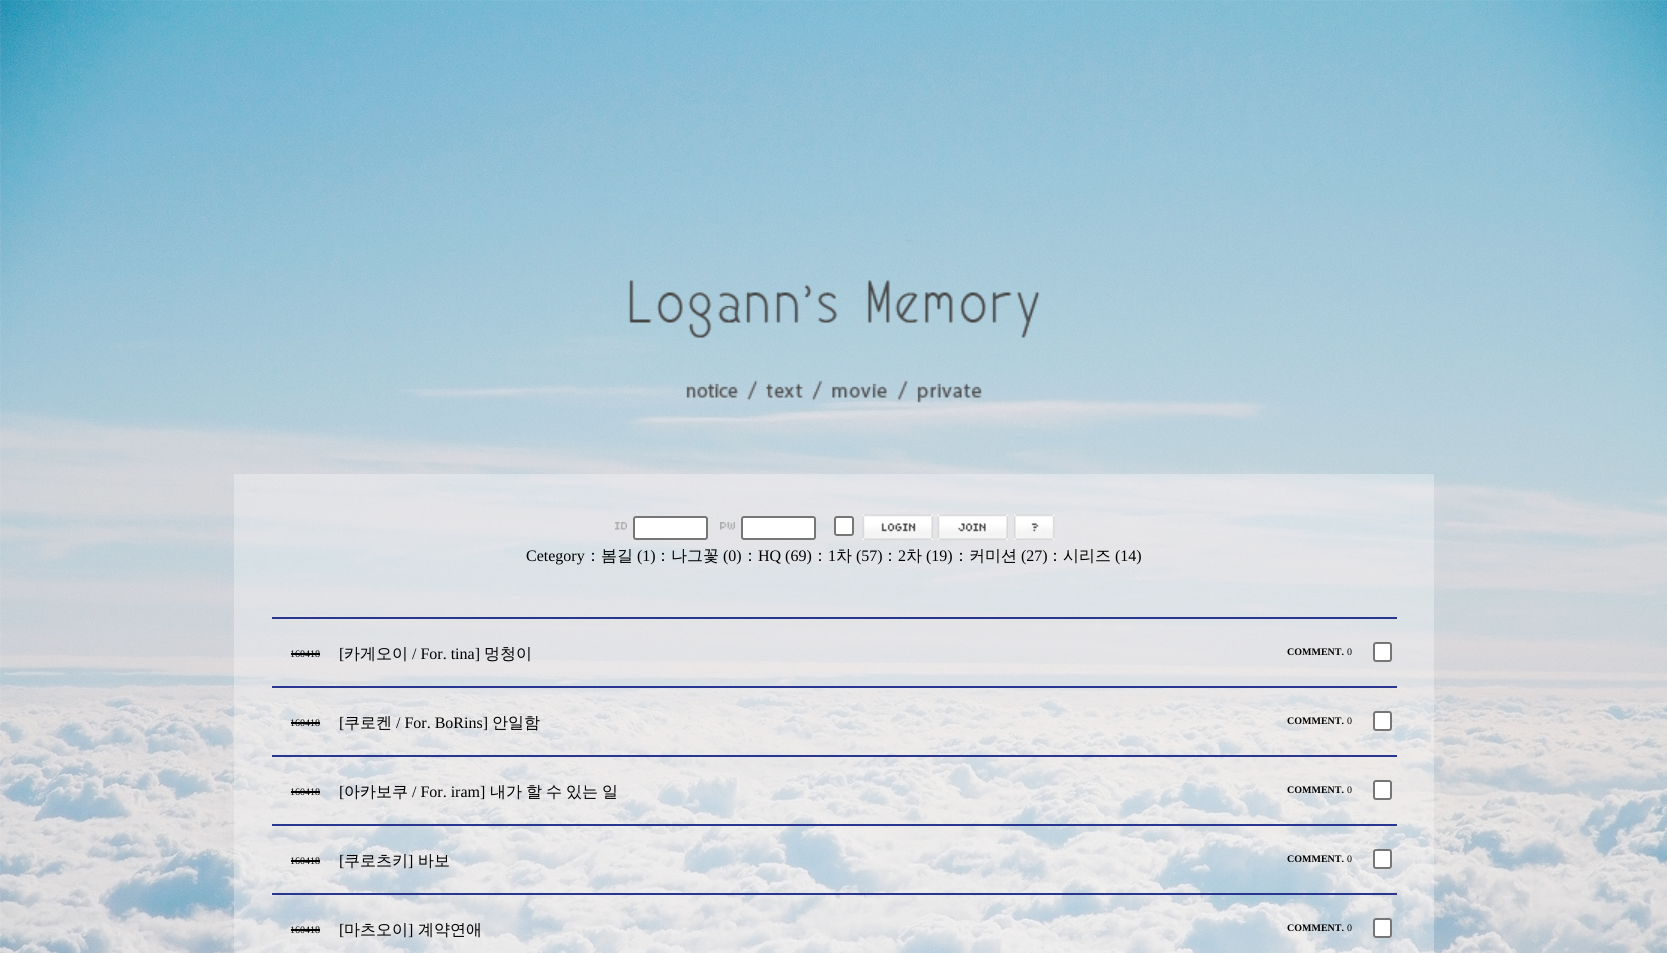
import math
import cairo


def round_path(ctx, x, y, w, h, r):
	ctx.new_sub_path()
	for i, (u, v) in enumerate([(x + w - r, y + h - r), (x + r, y + h - r), (x + r, y + r), (x + w - r, y + r)]):
		ctx.arc(u, v, r, i * math.pi / 2, (i + 1) * math.pi / 2)
	ctx.close_path()

def paste(ctx, path, x, y, w, h):
	ctx.save()
	ctx.set_source_surface(cairo.ImageSurface.create_from_png(path), x, y)
	ctx.rectangle(x, y, w, h)
	ctx.fill()
	ctx.restore()

def draw(ctx):
	ctx.set_source_rgb(1, 1, 1)
	ctx.paint()
	paste(ctx, 'media/1.png', 0, 0, 1667, 953)
	paste(ctx, 'media/2.png', 628, 280, 412, 123)
	ctx.set_source_rgba(1, 1, 1, 0.3)
	ctx.rectangle(234, 474, 1200, 66)
	ctx.fill()
	paste(ctx, 'media/3.png', 615, 522, 12, 8)
	ctx.set_source_rgb(1, 1, 1)
	round_path(ctx, 634, 517, 73, 22, 2)
	ctx.fill_preserve()
	ctx.set_source_rgb(0.463, 0.463, 0.463)
	ctx.stroke()
	paste(ctx, 'media/4.png', 720, 522, 15, 8)
	ctx.set_source_rgb(1, 1, 1)
	round_path(ctx, 742, 517, 73, 22, 2)
	ctx.fill_preserve()
	ctx.set_source_rgb(0.463, 0.463, 0.463)
	ctx.stroke()
	ctx.set_source_rgb(1, 1, 1)
	round_path(ctx, 835, 517, 18, 18, 2)
	ctx.fill_preserve()
	ctx.set_source_rgb(0.463, 0.463, 0.463)
	ctx.stroke()
	paste(ctx, 'media/5.png', 862, 514, 71, 26)
	paste(ctx, 'media/6.png', 937, 514, 71, 26)
	paste(ctx, 'media/7.png', 1014, 514, 41, 26)
	ctx.set_source_rgba(1, 1, 1, 0.3)
	ctx.rectangle(234, 540, 1200, 413)
	ctx.fill()
	ctx.select_font_face('Liberation Serif')
	ctx.set_font_size(16)
	ctx.set_source_rgb(0, 0, 0)
	ctx.move_to(526, 561)
	ctx.show_text('Cetegory')
	ctx.select_font_face('WenQuanYi Zen Hei Medium')
	ctx.move_to(585, 561)
	ctx.show_text('：봄길')
	ctx.select_font_face('Liberation Serif')
	ctx.move_to(637, 561)
	ctx.show_text('(1)')
	ctx.select_font_face('WenQuanYi Zen Hei Medium')
	ctx.move_to(655, 561)
	ctx.show_text('：나그꽃')
	ctx.select_font_face('Liberation Serif')
	ctx.move_to(723, 561)
	ctx.show_text('(0)')
	ctx.select_font_face('WenQuanYi Zen Hei Medium')
	ctx.move_to(742, 561)
	ctx.show_text('：')
	ctx.select_font_face('Liberation Serif')
	ctx.move_to(758, 561)
	ctx.show_text('HQ (69)')
	ctx.select_font_face('WenQuanYi Zen Hei Medium')
	ctx.move_to(812, 561)
	ctx.show_text('：')
	ctx.select_font_face('Liberation Serif')
	ctx.move_to(828, 561)
	ctx.show_text('1')
	ctx.select_font_face('WenQuanYi Zen Hei Medium')
	ctx.move_to(836, 561)
	ctx.show_text('차')
	ctx.select_font_face('Liberation Serif')
	ctx.move_to(856, 561)
	ctx.show_text('(57)')
	ctx.select_font_face('WenQuanYi Zen Hei Medium')
	ctx.move_to(882, 561)
	ctx.show_text('：')
	ctx.select_font_face('Liberation Serif')
	ctx.move_to(898, 561)
	ctx.show_text('2')
	ctx.select_font_face('WenQuanYi Zen Hei Medium')
	ctx.move_to(906, 561)
	ctx.show_text('차')
	ctx.select_font_face('Liberation Serif')
	ctx.move_to(926, 561)
	ctx.show_text('(19)')
	ctx.select_font_face('WenQuanYi Zen Hei Medium')
	ctx.move_to(953, 561)
	ctx.show_text('：커미션')
	ctx.select_font_face('Liberation Serif')
	ctx.move_to(1021, 561)
	ctx.show_text('(27)')
	ctx.select_font_face('WenQuanYi Zen Hei Medium')
	ctx.move_to(1047, 561)
	ctx.show_text('：시리즈')
	ctx.select_font_face('Liberation Serif')
	ctx.move_to(1115, 561)
	ctx.show_text('(14)')
	ctx.set_source_rgb(0.157, 0.212, 0.561)
	ctx.rectangle(272, 617, 1125, 2)
	ctx.fill()
	ctx.set_font_size(10)
	ctx.set_source_rgb(0, 0, 0)
	ctx.move_to(290, 657)
	ctx.show_text('160418')
	ctx.rectangle(291, 653, 29, 2)
	ctx.fill()
	ctx.set_font_size(16)
	ctx.move_to(339, 659)
	ctx.show_text('[')
	ctx.select_font_face('WenQuanYi Zen Hei Medium')
	ctx.move_to(344, 659)
	ctx.show_text('카게오이')
	ctx.select_font_face('Liberation Serif')
	ctx.move_to(412, 659)
	ctx.show_text('/ For. tina]')
	ctx.select_font_face('WenQuanYi Zen Hei Medium')
	ctx.move_to(484, 659)
	ctx.show_text('멍청이')
	ctx.select_font_face('Liberation Serif', cairo.FONT_SLANT_NORMAL, cairo.FONT_WEIGHT_BOLD)
	ctx.set_font_size(10)
	ctx.move_to(1287, 655)
	ctx.show_text('COMMENT.')
	ctx.select_font_face('Liberation Serif')
	ctx.move_to(1347, 655)
	ctx.show_text('0')
	ctx.set_source_rgb(1, 1, 1)
	round_path(ctx, 1374, 643, 17, 18, 2)
	ctx.fill_preserve()
	ctx.set_source_rgb(0.463, 0.463, 0.463)
	ctx.stroke()
	ctx.set_source_rgb(0.157, 0.212, 0.561)
	ctx.rectangle(272, 686, 1125, 2)
	ctx.fill()
	ctx.set_source_rgb(0, 0, 0)
	ctx.move_to(290, 726)
	ctx.show_text('160418')
	ctx.rectangle(291, 722, 29, 2)
	ctx.fill()
	ctx.set_font_size(16)
	ctx.move_to(339, 728)
	ctx.show_text('[')
	ctx.select_font_face('WenQuanYi Zen Hei Medium')
	ctx.move_to(344, 728)
	ctx.show_text('쿠로켄')
	ctx.select_font_face('Liberation Serif')
	ctx.move_to(396, 728)
	ctx.show_text('/ For. BoRins]')
	ctx.select_font_face('WenQuanYi Zen Hei Medium')
	ctx.move_to(492, 728)
	ctx.show_text('안일함')
	ctx.select_font_face('Liberation Serif', cairo.FONT_SLANT_NORMAL, cairo.FONT_WEIGHT_BOLD)
	ctx.set_font_size(10)
	ctx.move_to(1287, 724)
	ctx.show_text('COMMENT.')
	ctx.select_font_face('Liberation Serif')
	ctx.move_to(1347, 724)
	ctx.show_text('0')
	ctx.set_source_rgb(1, 1, 1)
	round_path(ctx, 1374, 712, 17, 18, 2)
	ctx.fill_preserve()
	ctx.set_source_rgb(0.463, 0.463, 0.463)
	ctx.stroke()
	ctx.set_source_rgb(0.157, 0.212, 0.561)
	ctx.rectangle(272, 755, 1125, 2)
	ctx.fill()
	ctx.set_source_rgb(0, 0, 0)
	ctx.move_to(290, 795)
	ctx.show_text('160418')
	ctx.rectangle(291, 791, 29, 2)
	ctx.fill()
	ctx.set_font_size(16)
	ctx.move_to(339, 797)
	ctx.show_text('[')
	ctx.select_font_face('WenQuanYi Zen Hei Medium')
	ctx.move_to(344, 797)
	ctx.show_text('아카보쿠')
	ctx.select_font_face('Liberation Serif')
	ctx.move_to(412, 797)
	ctx.show_text('/ For. iram]')
	ctx.select_font_face('WenQuanYi Zen Hei Medium')
	for x, y, s in [
		(490, 797, '내가'),
		(526, 797, '할'),
		(546, 797, '수'),
		(566, 797, '있는'),
		(602, 797, '일'),
	]:
		ctx.move_to(x, y)
		ctx.show_text(s)
	ctx.select_font_face('Liberation Serif', cairo.FONT_SLANT_NORMAL, cairo.FONT_WEIGHT_BOLD)
	ctx.set_font_size(10)
	ctx.move_to(1287, 793)
	ctx.show_text('COMMENT.')
	ctx.select_font_face('Liberation Serif')
	ctx.move_to(1347, 793)
	ctx.show_text('0')
	ctx.set_source_rgb(1, 1, 1)
	round_path(ctx, 1374, 781, 17, 18, 2)
	ctx.fill_preserve()
	ctx.set_source_rgb(0.463, 0.463, 0.463)
	ctx.stroke()
	ctx.set_source_rgb(0.157, 0.212, 0.561)
	ctx.rectangle(272, 824, 1125, 2)
	ctx.fill()
	ctx.set_source_rgb(0, 0, 0)
	ctx.move_to(290, 864)
	ctx.show_text('160418')
	ctx.rectangle(291, 860, 29, 2)
	ctx.fill()
	ctx.set_font_size(16)
	ctx.move_to(339, 866)
	ctx.show_text('[')
	ctx.select_font_face('WenQuanYi Zen Hei Medium')
	ctx.move_to(344, 866)
	ctx.show_text('쿠로츠키')
	ctx.select_font_face('Liberation Serif')
	ctx.move_to(408, 866)
	ctx.show_text(']')
	ctx.select_font_face('WenQuanYi Zen Hei Medium')
	ctx.move_to(418, 866)
	ctx.show_text('바보')
	ctx.select_font_face('Liberation Serif', cairo.FONT_SLANT_NORMAL, cairo.FONT_WEIGHT_BOLD)
	ctx.set_font_size(10)
	ctx.move_to(1287, 862)
	ctx.show_text('COMMENT.')
	ctx.select_font_face('Liberation Serif')
	ctx.move_to(1347, 862)
	ctx.show_text('0')
	ctx.set_source_rgb(1, 1, 1)
	round_path(ctx, 1374, 850, 17, 18, 2)
	ctx.fill_preserve()
	ctx.set_source_rgb(0.463, 0.463, 0.463)
	ctx.stroke()
	ctx.set_source_rgb(0.157, 0.212, 0.561)
	ctx.rectangle(272, 893, 1125, 2)
	ctx.fill()
	ctx.set_source_rgb(0, 0, 0)
	ctx.move_to(290, 933)
	ctx.show_text('160418')
	ctx.rectangle(291, 929, 29, 2)
	ctx.fill()
	ctx.set_font_size(16)
	ctx.move_to(339, 935)
	ctx.show_text('[')
	ctx.select_font_face('WenQuanYi Zen Hei Medium')
	ctx.move_to(344, 935)
	ctx.show_text('마츠오이')
	ctx.select_font_face('Liberation Serif')
	ctx.move_to(408, 935)
	ctx.show_text(']')
	ctx.select_font_face('WenQuanYi Zen Hei Medium')
	ctx.move_to(418, 935)
	ctx.show_text('계약연애')
	ctx.select_font_face('Liberation Serif', cairo.FONT_SLANT_NORMAL, cairo.FONT_WEIGHT_BOLD)
	ctx.set_font_size(10)
	ctx.move_to(1287, 931)
	ctx.show_text('COMMENT.')
	ctx.select_font_face('Liberation Serif')
	ctx.move_to(1347, 931)
	ctx.show_text('0')
	ctx.set_source_rgb(1, 1, 1)
	round_path(ctx, 1374, 919, 17, 18, 2)
	ctx.fill_preserve()
	ctx.set_source_rgb(0.463, 0.463, 0.463)
	ctx.stroke()


surface = cairo.ImageSurface(cairo.FORMAT_RGB24, 1667, 953)
ctx = cairo.Context(surface)
options = cairo.FontOptions()
options.set_hint_metrics(cairo.HINT_METRICS_OFF)
options.set_hint_style(cairo.HINT_STYLE_NONE)
ctx.set_font_options(options)
ctx.set_miter_limit(4)
draw(ctx)
surface.write_to_png('image.png')
